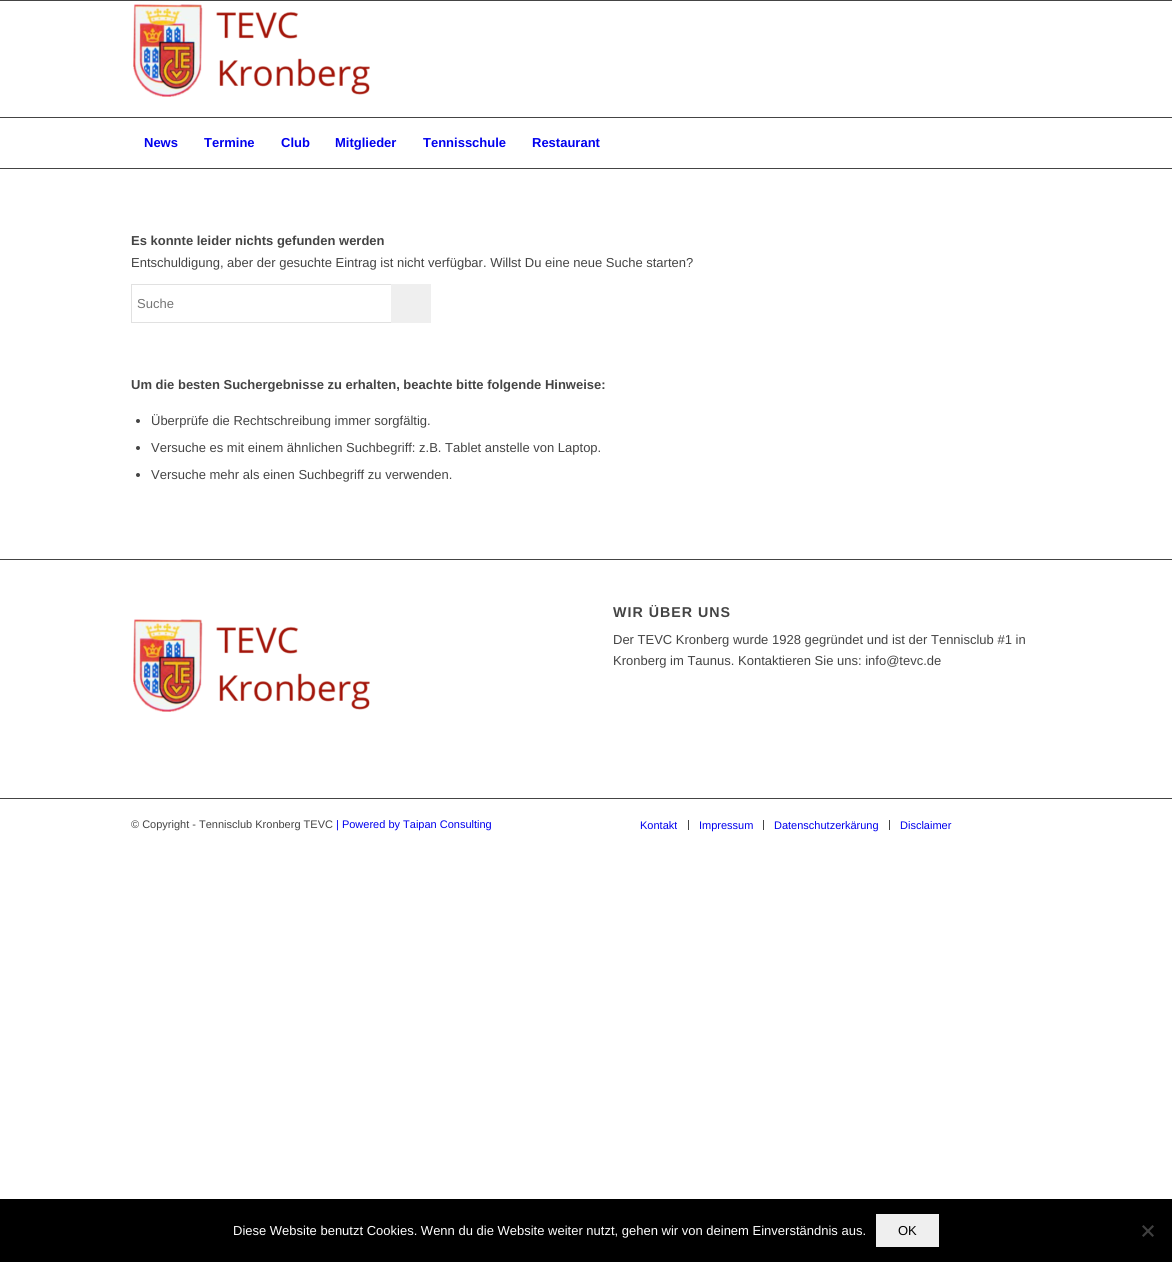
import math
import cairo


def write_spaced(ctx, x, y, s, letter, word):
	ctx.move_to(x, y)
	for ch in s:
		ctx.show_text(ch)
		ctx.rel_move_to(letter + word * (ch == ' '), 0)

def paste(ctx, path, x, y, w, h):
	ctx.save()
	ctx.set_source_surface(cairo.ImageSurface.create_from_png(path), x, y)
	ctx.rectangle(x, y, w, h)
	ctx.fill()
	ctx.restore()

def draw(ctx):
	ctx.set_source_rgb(1, 1, 1)
	ctx.paint()
	ctx.set_source_rgb(0.267, 0.267, 0.267)
	ctx.rectangle(0, 0, 1172, 1)
	ctx.fill()
	paste(ctx, 'media/1.png', 133, 4, 237, 93)
	ctx.rectangle(0, 117, 1172, 1)
	ctx.fill()
	ctx.select_font_face('Liberation Sans', cairo.FONT_SLANT_NORMAL, cairo.FONT_WEIGHT_BOLD)
	ctx.set_font_size(13)
	ctx.set_source_rgb(0, 0, 0.933)
	for x, y, s in [
		(144, 147, 'News'),
		(204, 147, 'Termine'),
		(281, 147, 'Club'),
		(335, 147, 'Mitglieder'),
		(423, 147, 'Tennisschule'),
		(532, 147, 'Restaurant'),
	]:
		ctx.move_to(x, y)
		ctx.show_text(s)
	ctx.set_source_rgb(0.267, 0.267, 0.267)
	ctx.rectangle(0, 168, 1172, 1)
	ctx.fill()
	ctx.move_to(131, 245)
	ctx.show_text('Es konnte leider nichts gefunden werden')
	ctx.select_font_face('Liberation Sans')
	ctx.move_to(131, 267)
	ctx.show_text('Entschuldigung, aber der gesuchte Eintrag ist nicht verfügbar. Willst Du eine neue Suche starten?')
	ctx.rectangle(131.5, 284.5, 299, 38)
	ctx.set_source_rgb(0.882, 0.882, 0.882)
	ctx.set_line_width(1)
	ctx.stroke()
	ctx.set_source_rgb(0.459, 0.459, 0.459)
	ctx.move_to(137, 308)
	ctx.show_text('Suche')
	ctx.set_source_rgb(0.937, 0.937, 0.937)
	ctx.rectangle(391, 284, 40, 39)
	ctx.fill()
	ctx.select_font_face('Liberation Sans', cairo.FONT_SLANT_NORMAL, cairo.FONT_WEIGHT_BOLD)
	ctx.set_source_rgb(0.267, 0.267, 0.267)
	ctx.move_to(131, 389)
	ctx.show_text('Um die besten Suchergebnisse zu erhalten, beachte bitte folgende Hinweise:')
	ctx.new_path()
	ctx.arc(138, 421, 2, 0, 2 * math.pi)
	ctx.fill()
	ctx.select_font_face('Liberation Sans')
	ctx.move_to(151, 425)
	ctx.show_text('Überprüfe die Rechtschreibung immer sorgfältig.')
	ctx.new_path()
	ctx.arc(138, 448, 2, 0, 2 * math.pi)
	ctx.fill()
	ctx.move_to(151, 452)
	ctx.show_text('Versuche es mit einem ähnlichen Suchbegriff: z.B. Tablet anstelle von Laptop.')
	ctx.new_path()
	ctx.arc(138, 475, 2, 0, 2 * math.pi)
	ctx.fill()
	ctx.move_to(151, 479)
	ctx.show_text('Versuche mehr als einen Suchbegriff zu verwenden.')
	ctx.rectangle(0, 559, 1172, 1)
	ctx.fill()
	paste(ctx, 'media/1.png', 133, 619, 237, 93)
	ctx.save()
	ctx.rectangle(613, 605, 428, 67)
	ctx.clip()
	ctx.select_font_face('Liberation Sans', cairo.FONT_SLANT_NORMAL, cairo.FONT_WEIGHT_BOLD)
	ctx.set_font_size(14.25)
	write_spaced(ctx, 613, 617, 'WIR ÜBER UNS', 1, 0)
	ctx.restore()
	ctx.move_to(613, 644)
	ctx.show_text('Der TEVC Kronberg wurde 1928 gegründet und ist der Tennisclub #1 in')
	ctx.move_to(613, 665)
	ctx.show_text('Kronberg im Taunus. Kontaktieren Sie uns: info@tevc.de')
	ctx.rectangle(0, 798, 1172, 1)
	ctx.fill()
	ctx.set_font_size(11)
	ctx.move_to(131, 828)
	ctx.show_text('© Copyright - Tennisclub Kronberg TEVC')
	ctx.set_source_rgb(0, 0, 0.933)
	ctx.move_to(336, 828)
	ctx.show_text('| Powered by Taipan Consulting')
	ctx.move_to(640, 829)
	ctx.show_text('Kontakt')
	ctx.set_source_rgb(0.267, 0.267, 0.267)
	ctx.rectangle(688, 820, 1, 10)
	ctx.fill()
	ctx.set_source_rgb(0, 0, 0.933)
	ctx.move_to(699, 829)
	ctx.show_text('Impressum')
	ctx.set_source_rgb(0.267, 0.267, 0.267)
	ctx.rectangle(763, 820, 1, 10)
	ctx.fill()
	ctx.set_source_rgb(0, 0, 0.933)
	ctx.move_to(774, 829)
	ctx.show_text('Datenschutzerkärung')
	ctx.set_source_rgb(0.267, 0.267, 0.267)
	ctx.rectangle(889, 820, 1, 10)
	ctx.fill()
	ctx.set_source_rgb(0, 0, 0.933)
	ctx.move_to(900, 829)
	ctx.show_text('Disclaimer')
	ctx.set_source_rgb(0, 0, 0)
	ctx.rectangle(0, 1199, 1172, 63)
	ctx.fill()
	ctx.set_font_size(13)
	ctx.set_source_rgb(1, 1, 1)
	ctx.move_to(233, 1235)
	ctx.show_text('Diese Website benutzt Cookies. Wenn du die Website weiter nutzt, gehen wir von deinem Einverständnis aus.')
	ctx.set_source_rgb(0.937, 0.937, 0.937)
	ctx.rectangle(876, 1214, 63, 33)
	ctx.fill()
	ctx.set_source_rgb(0, 0, 0)
	ctx.move_to(898, 1235)
	ctx.show_text('OK')
	ctx.set_source_rgb(0.251, 0.251, 0.251)
	ctx.new_path()
	ctx.move_to(1152.5, 1225)
	ctx.line_to(1154, 1226.5)
	ctx.line_to(1143.5, 1237)
	ctx.line_to(1142, 1235.5)
	ctx.close_path()
	ctx.fill()
	ctx.new_path()
	ctx.move_to(1142, 1226.5)
	ctx.line_to(1143.5, 1225)
	ctx.line_to(1154, 1235.5)
	ctx.line_to(1152.5, 1237)
	ctx.close_path()
	ctx.fill()


surface = cairo.ImageSurface(cairo.FORMAT_RGB24, 1172, 1262)
ctx = cairo.Context(surface)
options = cairo.FontOptions()
options.set_hint_metrics(cairo.HINT_METRICS_OFF)
options.set_hint_style(cairo.HINT_STYLE_NONE)
ctx.set_font_options(options)
ctx.set_miter_limit(4)
draw(ctx)
surface.write_to_png('image.png')
